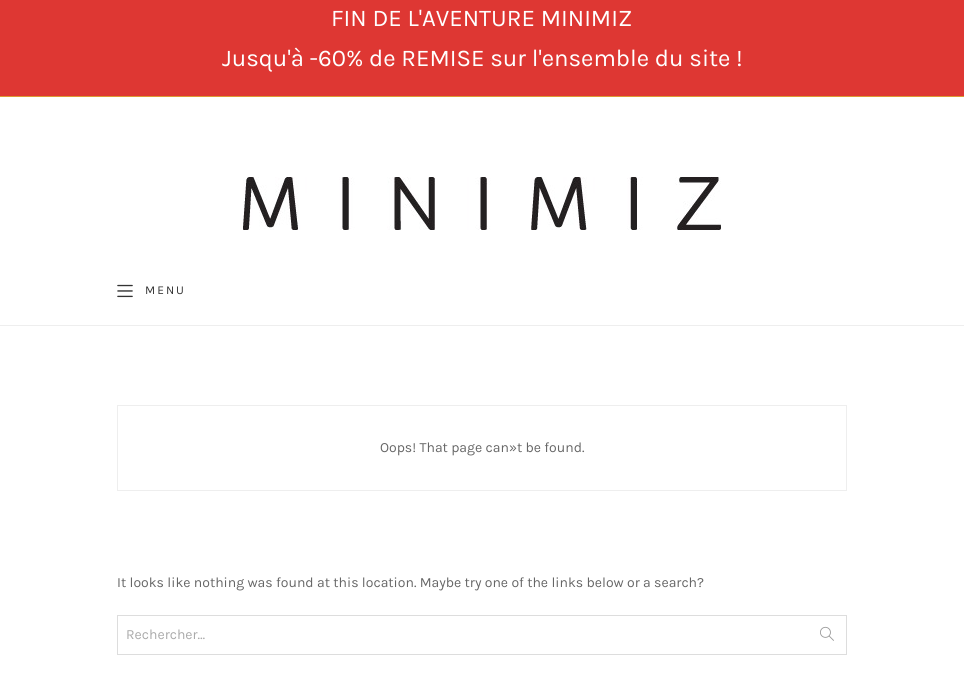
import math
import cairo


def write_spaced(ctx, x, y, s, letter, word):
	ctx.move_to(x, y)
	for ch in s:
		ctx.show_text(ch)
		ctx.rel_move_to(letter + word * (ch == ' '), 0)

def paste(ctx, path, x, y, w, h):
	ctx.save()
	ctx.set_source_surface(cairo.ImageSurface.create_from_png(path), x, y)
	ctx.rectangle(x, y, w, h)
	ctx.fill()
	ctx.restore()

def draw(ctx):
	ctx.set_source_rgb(1, 1, 1)
	ctx.paint()
	ctx.set_source_rgb(0.871, 0.216, 0.2)
	ctx.rectangle(0, 0, 964, 96)
	ctx.fill()
	ctx.set_source_rgb(0.867, 0.6, 0.2)
	ctx.rectangle(0, 96, 964, 1)
	ctx.fill()
	ctx.select_font_face('Karla')
	ctx.set_font_size(24)
	ctx.set_source_rgb(1, 1, 1)
	ctx.move_to(331, 26)
	ctx.show_text('FIN DE L\'AVENTURE MINIMIZ')
	ctx.move_to(222, 66)
	ctx.show_text('Jusqu\'à -60% de REMISE sur l\'ensemble du site !')
	paste(ctx, 'media/1.png', 243, 177, 478, 53)
	paste(ctx, 'media/2.png', 117, 284, 16, 14)
	ctx.set_font_size(12)
	ctx.set_source_rgb(0.2, 0.2, 0.2)
	write_spaced(ctx, 145, 294, 'MENU', 2, 0)
	ctx.set_source_rgb(0.933, 0.933, 0.933)
	ctx.rectangle(0, 325, 964, 1)
	ctx.fill()
	ctx.rectangle(117.5, 405.5, 729, 85)
	ctx.set_line_width(1)
	ctx.stroke()
	ctx.set_font_size(14)
	ctx.set_source_rgb(0.4, 0.4, 0.4)
	ctx.move_to(380, 452)
	ctx.show_text('Oops! That page can»t be found.')
	ctx.move_to(117, 587)
	ctx.show_text('It looks like nothing was found at this location. Maybe try one of the links below or a search?')
	ctx.rectangle(117.5, 615.5, 729, 39)
	ctx.set_source_rgb(0.867, 0.867, 0.867)
	ctx.stroke()
	ctx.set_source_rgb(0.667, 0.667, 0.667)
	ctx.move_to(126, 639)
	ctx.show_text('Rechercher…')
	paste(ctx, 'media/3.png', 820, 626, 14, 15)


surface = cairo.ImageSurface(cairo.FORMAT_RGB24, 964, 676)
ctx = cairo.Context(surface)
options = cairo.FontOptions()
options.set_hint_metrics(cairo.HINT_METRICS_OFF)
options.set_hint_style(cairo.HINT_STYLE_NONE)
ctx.set_font_options(options)
ctx.set_miter_limit(4)
draw(ctx)
surface.write_to_png('image.png')
